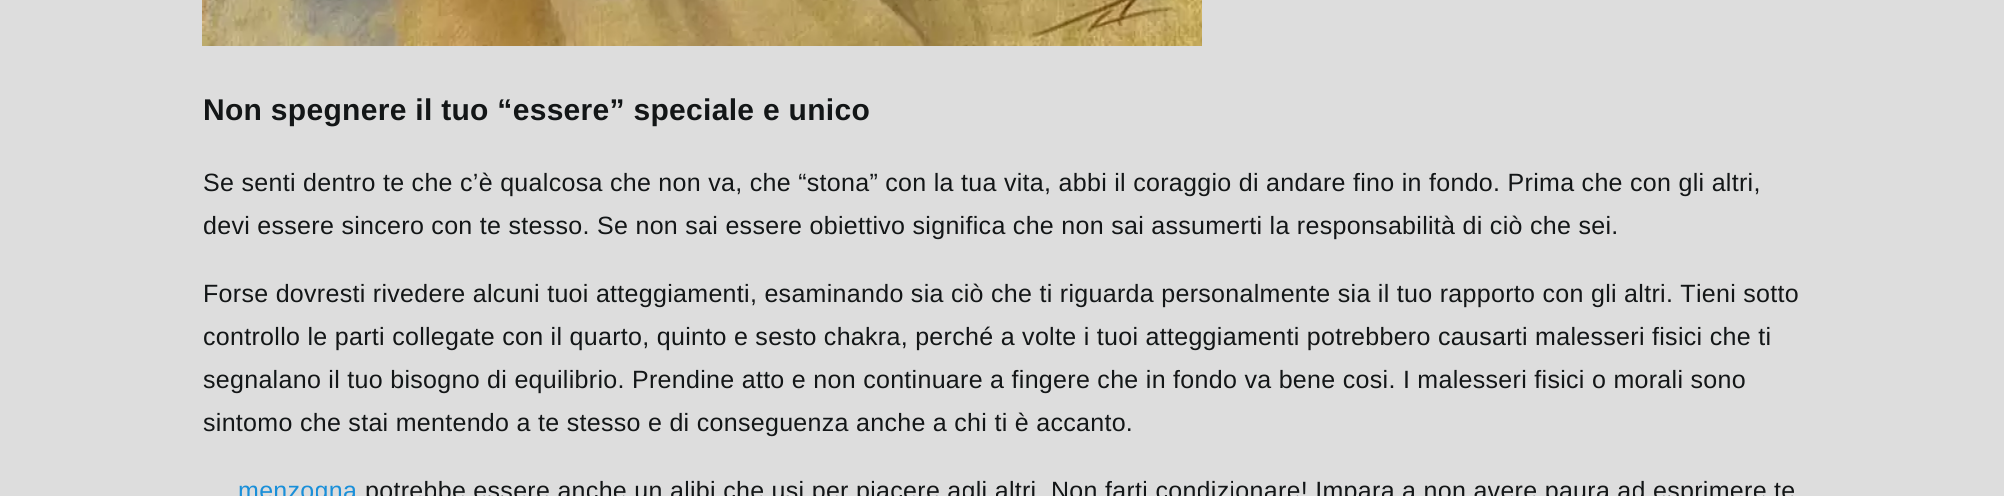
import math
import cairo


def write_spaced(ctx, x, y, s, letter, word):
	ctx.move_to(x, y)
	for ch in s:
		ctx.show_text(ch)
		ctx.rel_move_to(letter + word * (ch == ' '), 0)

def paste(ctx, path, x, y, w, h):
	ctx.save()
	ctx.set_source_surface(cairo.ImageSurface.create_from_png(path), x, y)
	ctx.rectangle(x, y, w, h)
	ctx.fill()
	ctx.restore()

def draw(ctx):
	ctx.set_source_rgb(0.867, 0.867, 0.867)
	ctx.paint()
	paste(ctx, 'media/1.png', 202, 0, 1000, 46)
	ctx.select_font_face('Liberation Sans', cairo.FONT_SLANT_NORMAL, cairo.FONT_WEIGHT_BOLD)
	ctx.set_font_size(30)
	ctx.set_source_rgb(0.078, 0.086, 0.09)
	write_spaced(ctx, 203, 120, 'Non spegnere il tuo “essere” speciale e unico', 0.3, 0)
	ctx.select_font_face('Liberation Sans')
	ctx.set_font_size(25)
	for x, y, s in [
		(203, 191, 'Se senti dentro te che c’è qualcosa che non va, che “stona” con la tua vita, abbi il coraggio di andare fino in fondo. Prima che con gli altri,'),
		(203, 234, 'devi essere sincero con te stesso. Se non sai essere obiettivo significa che non sai assumerti la responsabilità di ciò che sei.'),
		(203, 302, 'Forse dovresti rivedere alcuni tuoi atteggiamenti, esaminando sia ciò che ti riguarda personalmente sia il tuo rapporto con gli altri. Tieni sotto'),
		(203, 345, 'controllo le parti collegate con il quarto, quinto e sesto chakra, perché a volte i tuoi atteggiamenti potrebbero causarti malesseri fisici che ti'),
		(203, 388, 'segnalano il tuo bisogno di equilibrio. Prendine atto e non continuare a fingere che in fondo va bene cosi. I malesseri fisici o morali sono'),
		(203, 431, 'sintomo che stai mentendo a te stesso e di conseguenza anche a chi ti è accanto.'),
	]:
		write_spaced(ctx, x, y, s, 0.3, 0)
	ctx.set_source_rgb(0.098, 0.561, 0.851)
	write_spaced(ctx, 238, 499, 'menzogna', 0.3, 0)
	ctx.set_source_rgb(0.078, 0.086, 0.09)
	write_spaced(ctx, 365, 499, 'potrebbe essere anche un alibi che usi per piacere agli altri. Non farti condizionare! Impara a non avere paura ad esprimere te', 0.3, 0)


surface = cairo.ImageSurface(cairo.FORMAT_RGB24, 2004, 496)
ctx = cairo.Context(surface)
options = cairo.FontOptions()
options.set_hint_metrics(cairo.HINT_METRICS_OFF)
options.set_hint_style(cairo.HINT_STYLE_NONE)
ctx.set_font_options(options)
ctx.set_miter_limit(4)
draw(ctx)
surface.write_to_png('image.png')
